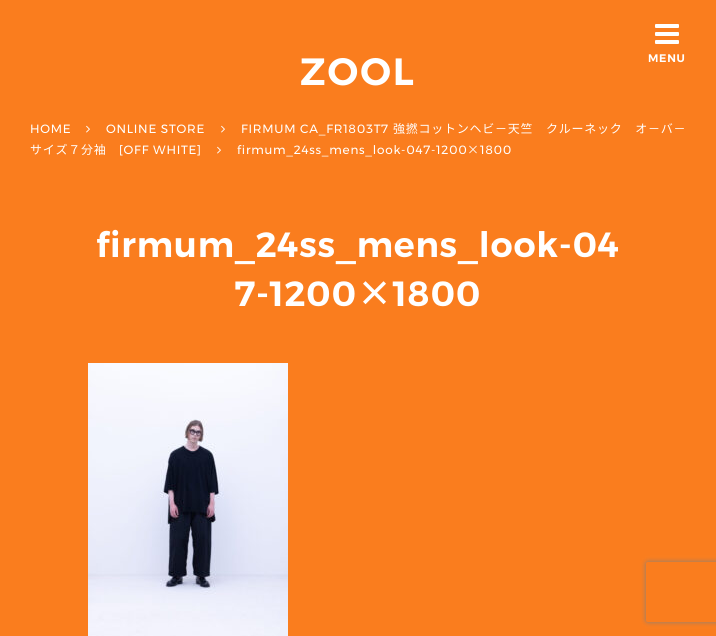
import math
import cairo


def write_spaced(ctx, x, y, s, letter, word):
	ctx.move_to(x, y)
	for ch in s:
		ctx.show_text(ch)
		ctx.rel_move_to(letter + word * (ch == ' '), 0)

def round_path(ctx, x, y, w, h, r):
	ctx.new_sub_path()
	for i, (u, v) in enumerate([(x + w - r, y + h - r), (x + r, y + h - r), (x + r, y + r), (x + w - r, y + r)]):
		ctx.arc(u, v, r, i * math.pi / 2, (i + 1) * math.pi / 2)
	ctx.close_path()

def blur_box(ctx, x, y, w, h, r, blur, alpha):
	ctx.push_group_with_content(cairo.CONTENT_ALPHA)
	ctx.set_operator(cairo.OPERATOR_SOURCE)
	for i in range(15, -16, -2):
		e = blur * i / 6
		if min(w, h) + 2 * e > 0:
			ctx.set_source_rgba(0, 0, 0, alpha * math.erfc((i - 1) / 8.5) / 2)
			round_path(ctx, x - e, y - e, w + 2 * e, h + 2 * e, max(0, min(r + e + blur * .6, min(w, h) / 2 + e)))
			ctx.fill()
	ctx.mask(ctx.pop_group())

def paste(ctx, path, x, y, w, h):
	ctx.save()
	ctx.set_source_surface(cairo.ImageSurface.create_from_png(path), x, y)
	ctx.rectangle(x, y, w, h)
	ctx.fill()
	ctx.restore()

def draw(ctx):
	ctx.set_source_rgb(0.98, 0.49, 0.118)
	ctx.paint()
	ctx.select_font_face('Montserrat SemiBold')
	ctx.set_font_size(38)
	ctx.set_source_rgb(1, 1, 1)
	write_spaced(ctx, 300, 85, 'ZOOL', 2, 0)
	paste(ctx, 'media/1.png', 655, 24, 24, 20)
	ctx.set_font_size(11)
	write_spaced(ctx, 648, 62, 'MENU', 0.75, 0)
	ctx.select_font_face('Montserrat')
	ctx.set_font_size(12)
	write_spaced(ctx, 30, 133, 'HOME', 0.75, 0)
	paste(ctx, 'media/2.png', 86, 125, 4, 8)
	write_spaced(ctx, 106, 133, 'ONLINE STORE', 0.75, 0)
	paste(ctx, 'media/2.png', 221, 125, 4, 8)
	write_spaced(ctx, 241, 133, 'FIRMUM CA_FR1803T7', 0.75, 0)
	ctx.select_font_face('Noto Sans CJK JP')
	write_spaced(ctx, 393, 133, '強撚コットンヘビ－天竺　クルーネック　オ－バ－', 0.75, 0)
	write_spaced(ctx, 30, 154, 'サイズ７分袖', 0.75, 0)
	ctx.select_font_face('Montserrat')
	write_spaced(ctx, 119, 154, '[OFF WHITE]', 0.75, 0)
	paste(ctx, 'media/2.png', 217, 146, 4, 8)
	write_spaced(ctx, 237, 154, 'firmum_24ss_mens_look-047-1200', 0.75, 0)
	ctx.select_font_face('Noto Sans CJK JP')
	write_spaced(ctx, 467, 154, '×', 0.75, 0)
	ctx.select_font_face('Montserrat')
	write_spaced(ctx, 480, 154, '1800', 0.75, 0)
	ctx.select_font_face('Montserrat SemiBold')
	ctx.set_font_size(35)
	write_spaced(ctx, 96, 257, 'firmum_24ss_mens_look-04', 0.75, 0)
	write_spaced(ctx, 235, 306, '7-1200', 0.75, 0)
	ctx.select_font_face('Noto Sans CJK JP', cairo.FONT_SLANT_NORMAL, cairo.FONT_WEIGHT_BOLD)
	write_spaced(ctx, 357, 306, '×', 0.75, 0)
	ctx.select_font_face('Montserrat SemiBold')
	write_spaced(ctx, 393, 306, '1800', 0.75, 0)
	paste(ctx, 'media/3.png', 88, 363, 200, 273)
	ctx.save()
	ctx.set_fill_rule(cairo.FILL_RULE_EVEN_ODD)
	ctx.new_path()
	ctx.move_to(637, 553)
	ctx.line_to(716, 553)
	ctx.line_to(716, 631)
	ctx.line_to(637, 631)
	ctx.close_path()
	ctx.move_to(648, 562)
	ctx.line_to(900, 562)
	ctx.curve_to(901, 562, 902, 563, 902, 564)
	ctx.line_to(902, 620)
	ctx.curve_to(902, 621, 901, 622, 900, 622)
	ctx.line_to(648, 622)
	ctx.curve_to(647, 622, 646, 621, 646, 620)
	ctx.line_to(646, 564)
	ctx.curve_to(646, 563, 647, 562, 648, 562)
	ctx.close_path()
	ctx.clip()
	ctx.set_source_rgb(0.502, 0.502, 0.502)
	blur_box(ctx, 646, 562, 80, 60, 2, 2.5, 1)
	ctx.restore()


surface = cairo.ImageSurface(cairo.FORMAT_RGB24, 716, 636)
ctx = cairo.Context(surface)
options = cairo.FontOptions()
options.set_hint_metrics(cairo.HINT_METRICS_OFF)
options.set_hint_style(cairo.HINT_STYLE_NONE)
ctx.set_font_options(options)
ctx.set_miter_limit(4)
draw(ctx)
surface.write_to_png('image.png')
